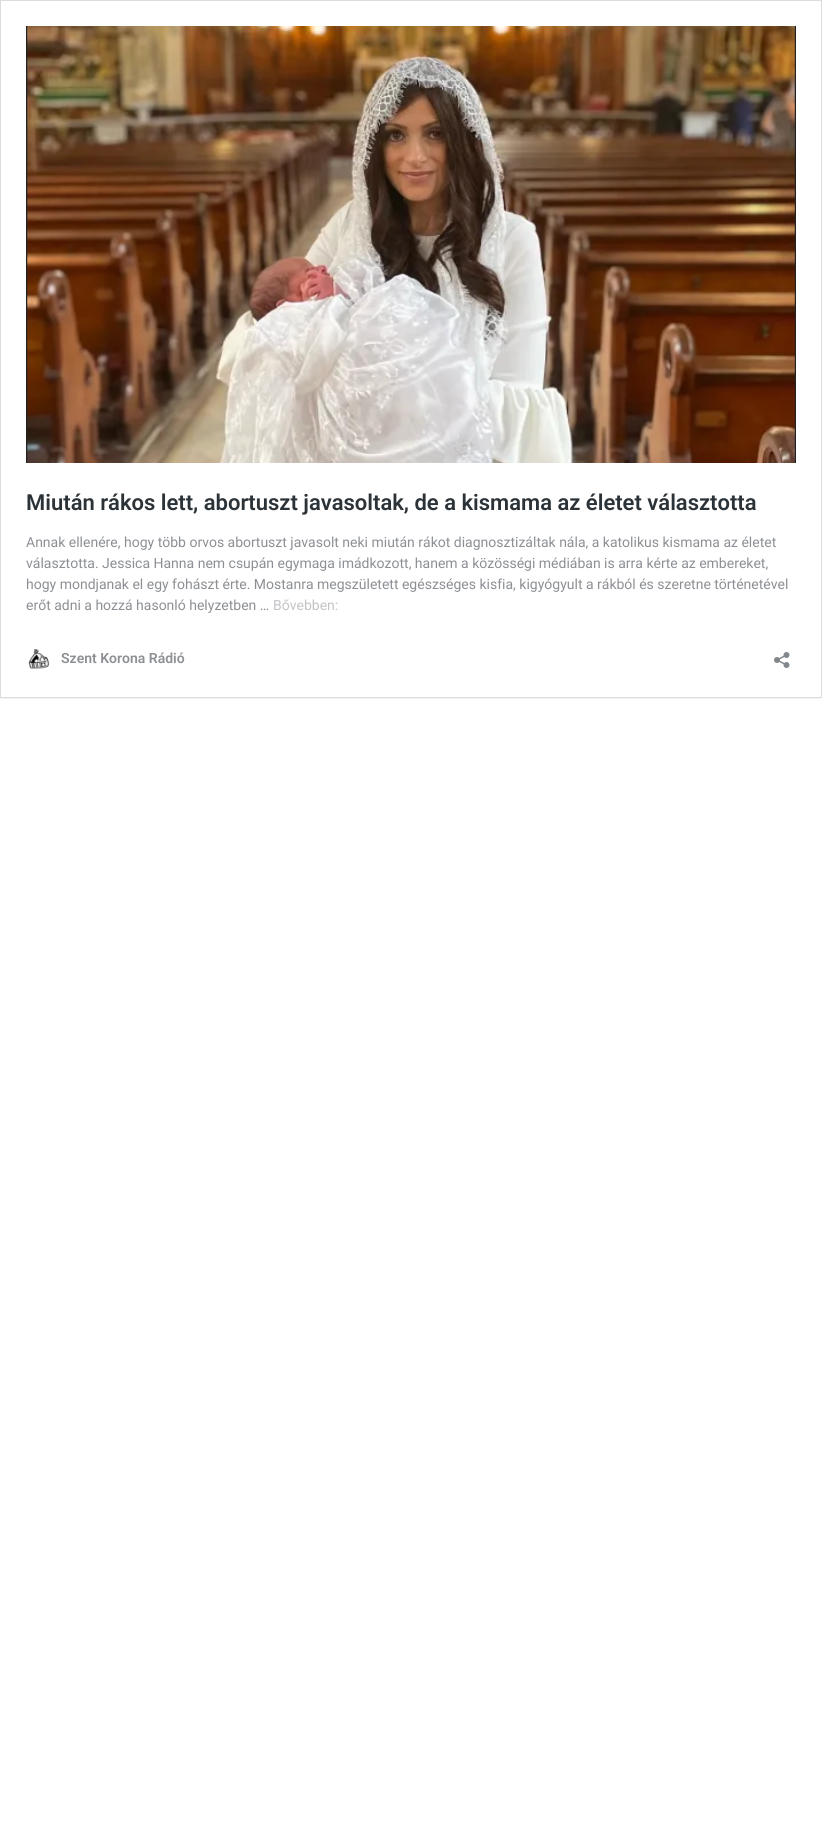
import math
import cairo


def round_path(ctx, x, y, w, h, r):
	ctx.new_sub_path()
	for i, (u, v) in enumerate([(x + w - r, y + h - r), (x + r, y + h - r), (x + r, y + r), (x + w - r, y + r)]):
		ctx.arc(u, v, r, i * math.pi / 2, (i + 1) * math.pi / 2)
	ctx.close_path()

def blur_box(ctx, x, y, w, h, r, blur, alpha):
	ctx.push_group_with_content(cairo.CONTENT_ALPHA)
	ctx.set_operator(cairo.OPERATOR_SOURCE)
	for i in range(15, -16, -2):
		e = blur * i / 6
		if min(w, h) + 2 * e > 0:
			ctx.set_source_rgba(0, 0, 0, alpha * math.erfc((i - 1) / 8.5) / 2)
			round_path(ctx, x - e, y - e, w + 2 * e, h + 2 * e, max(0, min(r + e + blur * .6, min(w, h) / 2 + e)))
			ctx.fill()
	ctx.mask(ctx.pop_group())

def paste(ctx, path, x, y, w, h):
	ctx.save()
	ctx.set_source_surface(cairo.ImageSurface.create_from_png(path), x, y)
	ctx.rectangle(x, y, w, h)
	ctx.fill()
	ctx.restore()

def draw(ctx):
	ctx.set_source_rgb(1, 1, 1)
	ctx.paint()
	ctx.save()
	ctx.rectangle(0, 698, 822, 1)
	ctx.clip()
	ctx.set_source_rgb(0, 0, 0)
	blur_box(ctx, 0, 1, 822, 698, 0, 0.5, 0.05)
	ctx.restore()
	ctx.rectangle(0.5, 0.5, 821, 697)
	ctx.set_source_rgb(0.863, 0.863, 0.871)
	ctx.set_line_width(1)
	ctx.stroke()
	paste(ctx, 'media/1.png', 26, 26, 770, 437)
	ctx.select_font_face('Roboto SemiBold')
	ctx.set_font_size(22)
	ctx.set_source_rgb(0.173, 0.2, 0.22)
	ctx.move_to(26, 510)
	ctx.show_text('Miután rákos lett, abortuszt javasoltak, de a kismama az életet választotta')
	ctx.select_font_face('Roboto')
	ctx.set_font_size(14)
	ctx.set_source_rgb(0.549, 0.561, 0.58)
	for x, y, s in [
		(26, 547, 'Annak ellenére, hogy több orvos abortuszt javasolt neki miután rákot diagnosztizáltak nála, a katolikus kismama az életet'),
		(26, 568, 'választotta. Jessica Hanna nem csupán egymaga imádkozott, hanem a közösségi médiában is arra kérte az embereket,'),
		(26, 589, 'hogy mondjanak el egy fohászt érte. Mostanra megszületett egészséges kisfia, kigyógyult a rákból és szeretne történetével'),
		(26, 610, 'erőt adni a hozzá hasonló helyzetben …'),
	]:
		ctx.move_to(x, y)
		ctx.show_text(s)
	ctx.set_source_rgb(0.765, 0.769, 0.78)
	ctx.move_to(273, 610)
	ctx.show_text('Bővebben:')
	paste(ctx, 'media/2.png', 28, 649, 22, 20)
	ctx.select_font_face('Roboto SemiBold')
	ctx.set_source_rgb(0.549, 0.561, 0.58)
	ctx.move_to(61, 663)
	ctx.show_text('Szent Korona Rádió')
	paste(ctx, 'media/3.png', 774, 652, 16, 16)


surface = cairo.ImageSurface(cairo.FORMAT_RGB24, 822, 1844)
ctx = cairo.Context(surface)
options = cairo.FontOptions()
options.set_hint_metrics(cairo.HINT_METRICS_OFF)
options.set_hint_style(cairo.HINT_STYLE_NONE)
ctx.set_font_options(options)
ctx.set_miter_limit(4)
draw(ctx)
surface.write_to_png('image.png')
